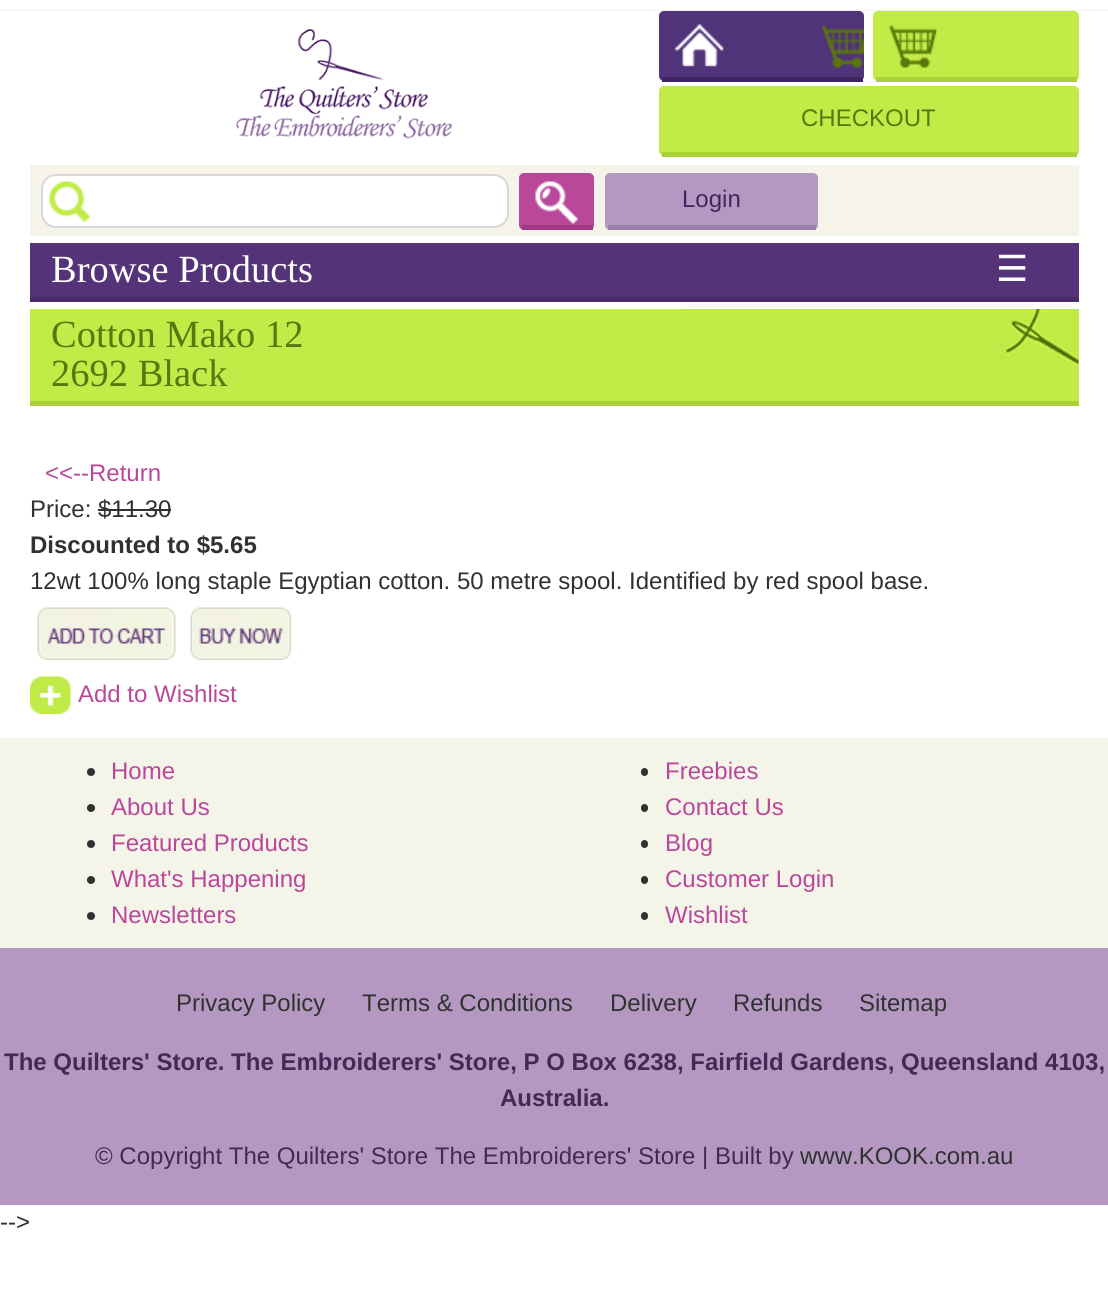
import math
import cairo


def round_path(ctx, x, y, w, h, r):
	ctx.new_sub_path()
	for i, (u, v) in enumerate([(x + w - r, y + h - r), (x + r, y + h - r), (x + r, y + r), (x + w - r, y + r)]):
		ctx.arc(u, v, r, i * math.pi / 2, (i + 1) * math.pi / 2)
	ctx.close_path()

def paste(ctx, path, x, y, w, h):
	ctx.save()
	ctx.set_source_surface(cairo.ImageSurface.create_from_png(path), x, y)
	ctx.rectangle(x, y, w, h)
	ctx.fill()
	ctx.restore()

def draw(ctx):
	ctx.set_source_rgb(1, 1, 1)
	ctx.paint()
	paste(ctx, 'media/1.png', 0, 10, 1108, 1)
	paste(ctx, 'media/2.png', 236, 28, 217, 111)
	ctx.set_source_rgb(0.318, 0.2, 0.475)
	round_path(ctx, 659, 11, 205, 70, 5)
	ctx.fill()
	paste(ctx, 'media/3.png', 674, 23, 190, 45)
	ctx.set_source_rgb(0.243, 0.153, 0.373)
	ctx.rectangle(662, 77, 201, 5)
	ctx.fill()
	ctx.set_source_rgb(0.757, 0.925, 0.278)
	round_path(ctx, 873, 11, 206, 70, 5)
	ctx.fill()
	paste(ctx, 'media/4.png', 889, 25, 49, 43)
	ctx.set_source_rgb(0.671, 0.824, 0.224)
	ctx.rectangle(876, 77, 201, 5)
	ctx.fill()
	ctx.set_source_rgb(0.757, 0.925, 0.278)
	round_path(ctx, 659, 86, 420, 70, 5)
	ctx.fill()
	ctx.set_source_rgb(0.671, 0.824, 0.224)
	ctx.rectangle(662, 152, 415, 5)
	ctx.fill()
	ctx.select_font_face('Liberation Sans')
	ctx.set_font_size(24)
	ctx.set_source_rgb(0.353, 0.467, 0.051)
	ctx.move_to(801, 126)
	ctx.show_text('CHECKOUT')
	ctx.set_source_rgb(0.961, 0.957, 0.914)
	ctx.rectangle(30, 165, 1049, 71)
	ctx.fill()
	ctx.set_source_rgb(1, 1, 1)
	round_path(ctx, 41, 174, 468, 54, 15)
	ctx.fill()
	paste(ctx, 'media/5.png', 49, 181, 42, 42)
	round_path(ctx, 42, 175, 466, 52, 14)
	ctx.set_source_rgb(0.843, 0.843, 0.843)
	ctx.stroke()
	ctx.set_source_rgb(0.725, 0.282, 0.604)
	round_path(ctx, 519, 173, 75, 57, 5)
	ctx.fill()
	paste(ctx, 'media/6.png', 535, 181, 43, 43)
	ctx.set_source_rgb(0.639, 0.224, 0.518)
	ctx.rectangle(522, 225, 71, 5)
	ctx.fill()
	ctx.set_source_rgb(0.706, 0.596, 0.757)
	round_path(ctx, 605, 173, 213, 57, 5)
	ctx.fill()
	ctx.set_source_rgb(0.608, 0.494, 0.667)
	ctx.rectangle(608, 225, 208, 5)
	ctx.fill()
	ctx.set_source_rgb(0.243, 0.153, 0.373)
	ctx.move_to(682, 207)
	ctx.show_text('Login')
	ctx.set_source_rgb(0.329, 0.2, 0.471)
	ctx.rectangle(30, 243, 1049, 54)
	ctx.fill()
	ctx.set_source_rgb(0.298, 0.161, 0.412)
	ctx.rectangle(30, 297, 1049, 5)
	ctx.fill()
	ctx.select_font_face('Liberation Serif')
	ctx.set_font_size(38.5)
	ctx.set_source_rgb(1, 1, 1)
	ctx.move_to(51, 282)
	ctx.show_text('Browse Products')
	ctx.select_font_face('DejaVu Sans')
	ctx.set_font_size(36)
	ctx.move_to(996, 281)
	ctx.show_text('☰')
	ctx.set_source_rgb(0.753, 0.922, 0.278)
	ctx.rectangle(30, 309, 1049, 92)
	ctx.fill()
	paste(ctx, 'media/7.png', 683, 309, 396, 57)
	ctx.set_source_rgb(0.667, 0.82, 0.212)
	ctx.rectangle(30, 401, 1049, 5)
	ctx.fill()
	ctx.select_font_face('Liberation Serif')
	ctx.set_font_size(38.5)
	ctx.set_source_rgb(0.353, 0.467, 0.051)
	ctx.move_to(51, 347)
	ctx.show_text('Cotton Mako 12')
	ctx.move_to(51, 386)
	ctx.show_text('2692 Black')
	ctx.select_font_face('Liberation Sans')
	ctx.set_font_size(24)
	ctx.set_source_rgb(0.733, 0.278, 0.612)
	ctx.move_to(45, 481)
	ctx.show_text('<<--Return')
	ctx.set_source_rgb(0.192, 0.192, 0.192)
	ctx.move_to(30, 517)
	ctx.show_text('Price: $11.30')
	ctx.rectangle(98, 509, 73, 2)
	ctx.fill()
	ctx.select_font_face('Liberation Sans', cairo.FONT_SLANT_NORMAL, cairo.FONT_WEIGHT_BOLD)
	ctx.move_to(30, 553)
	ctx.show_text('Discounted to $5.65')
	ctx.select_font_face('Liberation Sans')
	ctx.move_to(30, 589)
	ctx.show_text('12wt 100% long staple Egyptian cotton. 50 metre spool. Identified by red spool base.')
	paste(ctx, 'media/8.png', 37, 607, 139, 53)
	paste(ctx, 'media/9.png', 190, 607, 101, 53)
	paste(ctx, 'media/10.png', 30, 676, 41, 38)
	ctx.set_source_rgb(0.733, 0.278, 0.612)
	ctx.move_to(78, 702)
	ctx.show_text('Add to Wishlist')
	ctx.set_source_rgb(0.957, 0.957, 0.91)
	ctx.rectangle(0, 738, 1108, 210)
	ctx.fill()
	ctx.set_source_rgb(0.192, 0.192, 0.192)
	ctx.arc(91, 772, 4, 0, 2 * math.pi)
	ctx.fill()
	ctx.set_source_rgb(0.733, 0.278, 0.612)
	ctx.move_to(111, 779)
	ctx.show_text('Home')
	ctx.set_source_rgb(0.192, 0.192, 0.192)
	ctx.new_path()
	ctx.arc(91, 808, 4, 0, 2 * math.pi)
	ctx.fill()
	ctx.set_source_rgb(0.733, 0.278, 0.612)
	ctx.move_to(111, 815)
	ctx.show_text('About Us')
	ctx.set_source_rgb(0.192, 0.192, 0.192)
	ctx.new_path()
	ctx.arc(91, 844, 4, 0, 2 * math.pi)
	ctx.fill()
	ctx.set_source_rgb(0.733, 0.278, 0.612)
	ctx.move_to(111, 851)
	ctx.show_text('Featured Products')
	ctx.set_source_rgb(0.192, 0.192, 0.192)
	ctx.new_path()
	ctx.arc(91, 880, 4, 0, 2 * math.pi)
	ctx.fill()
	ctx.set_source_rgb(0.733, 0.278, 0.612)
	ctx.move_to(111, 887)
	ctx.show_text('What\'s Happening')
	ctx.set_source_rgb(0.192, 0.192, 0.192)
	ctx.new_path()
	ctx.arc(91, 916, 4, 0, 2 * math.pi)
	ctx.fill()
	ctx.set_source_rgb(0.733, 0.278, 0.612)
	ctx.move_to(111, 923)
	ctx.show_text('Newsletters')
	ctx.set_source_rgb(0.192, 0.192, 0.192)
	round_path(ctx, 641, 768, 7, 8, 3.5)
	ctx.fill()
	ctx.set_source_rgb(0.733, 0.278, 0.612)
	ctx.move_to(665, 779)
	ctx.show_text('Freebies')
	ctx.set_source_rgb(0.192, 0.192, 0.192)
	round_path(ctx, 641, 804, 7, 8, 3.5)
	ctx.fill()
	ctx.set_source_rgb(0.733, 0.278, 0.612)
	ctx.move_to(665, 815)
	ctx.show_text('Contact Us')
	ctx.set_source_rgb(0.192, 0.192, 0.192)
	round_path(ctx, 641, 840, 7, 8, 3.5)
	ctx.fill()
	ctx.set_source_rgb(0.733, 0.278, 0.612)
	ctx.move_to(665, 851)
	ctx.show_text('Blog')
	ctx.set_source_rgb(0.192, 0.192, 0.192)
	round_path(ctx, 641, 876, 7, 8, 3.5)
	ctx.fill()
	ctx.set_source_rgb(0.733, 0.278, 0.612)
	ctx.move_to(665, 887)
	ctx.show_text('Customer Login')
	ctx.set_source_rgb(0.192, 0.192, 0.192)
	round_path(ctx, 641, 912, 7, 8, 3.5)
	ctx.fill()
	ctx.set_source_rgb(0.733, 0.278, 0.612)
	ctx.move_to(665, 923)
	ctx.show_text('Wishlist')
	ctx.set_source_rgb(0.706, 0.596, 0.757)
	ctx.rectangle(0, 948, 1108, 257)
	ctx.fill()
	ctx.set_source_rgb(0.192, 0.192, 0.192)
	for x, y, s in [
		(176, 1011, 'Privacy Policy'),
		(362, 1011, 'Terms & Conditions'),
		(610, 1011, 'Delivery'),
		(733, 1011, 'Refunds'),
		(859, 1011, 'Sitemap'),
	]:
		ctx.move_to(x, y)
		ctx.show_text(s)
	ctx.select_font_face('Liberation Sans', cairo.FONT_SLANT_NORMAL, cairo.FONT_WEIGHT_BOLD)
	ctx.set_source_rgb(0.278, 0.153, 0.337)
	ctx.move_to(4, 1070)
	ctx.show_text('The Quilters\' Store. The Embroiderers\' Store, P O Box 6238, Fairfield Gardens, Queensland 4103,')
	ctx.move_to(500, 1106)
	ctx.show_text('Australia.')
	ctx.select_font_face('Liberation Sans')
	ctx.move_to(95, 1164)
	ctx.show_text('© Copyright The Quilters\' Store The Embroiderers\' Store | Built by')
	ctx.set_source_rgb(0.192, 0.192, 0.192)
	ctx.move_to(800, 1164)
	ctx.show_text('www.KOOK.com.au')
	ctx.move_to(0, 1230)
	ctx.show_text('-->')


surface = cairo.ImageSurface(cairo.FORMAT_RGB24, 1108, 1315)
ctx = cairo.Context(surface)
options = cairo.FontOptions()
options.set_hint_metrics(cairo.HINT_METRICS_OFF)
options.set_hint_style(cairo.HINT_STYLE_NONE)
ctx.set_font_options(options)
ctx.set_miter_limit(4)
draw(ctx)
surface.write_to_png('image.png')
